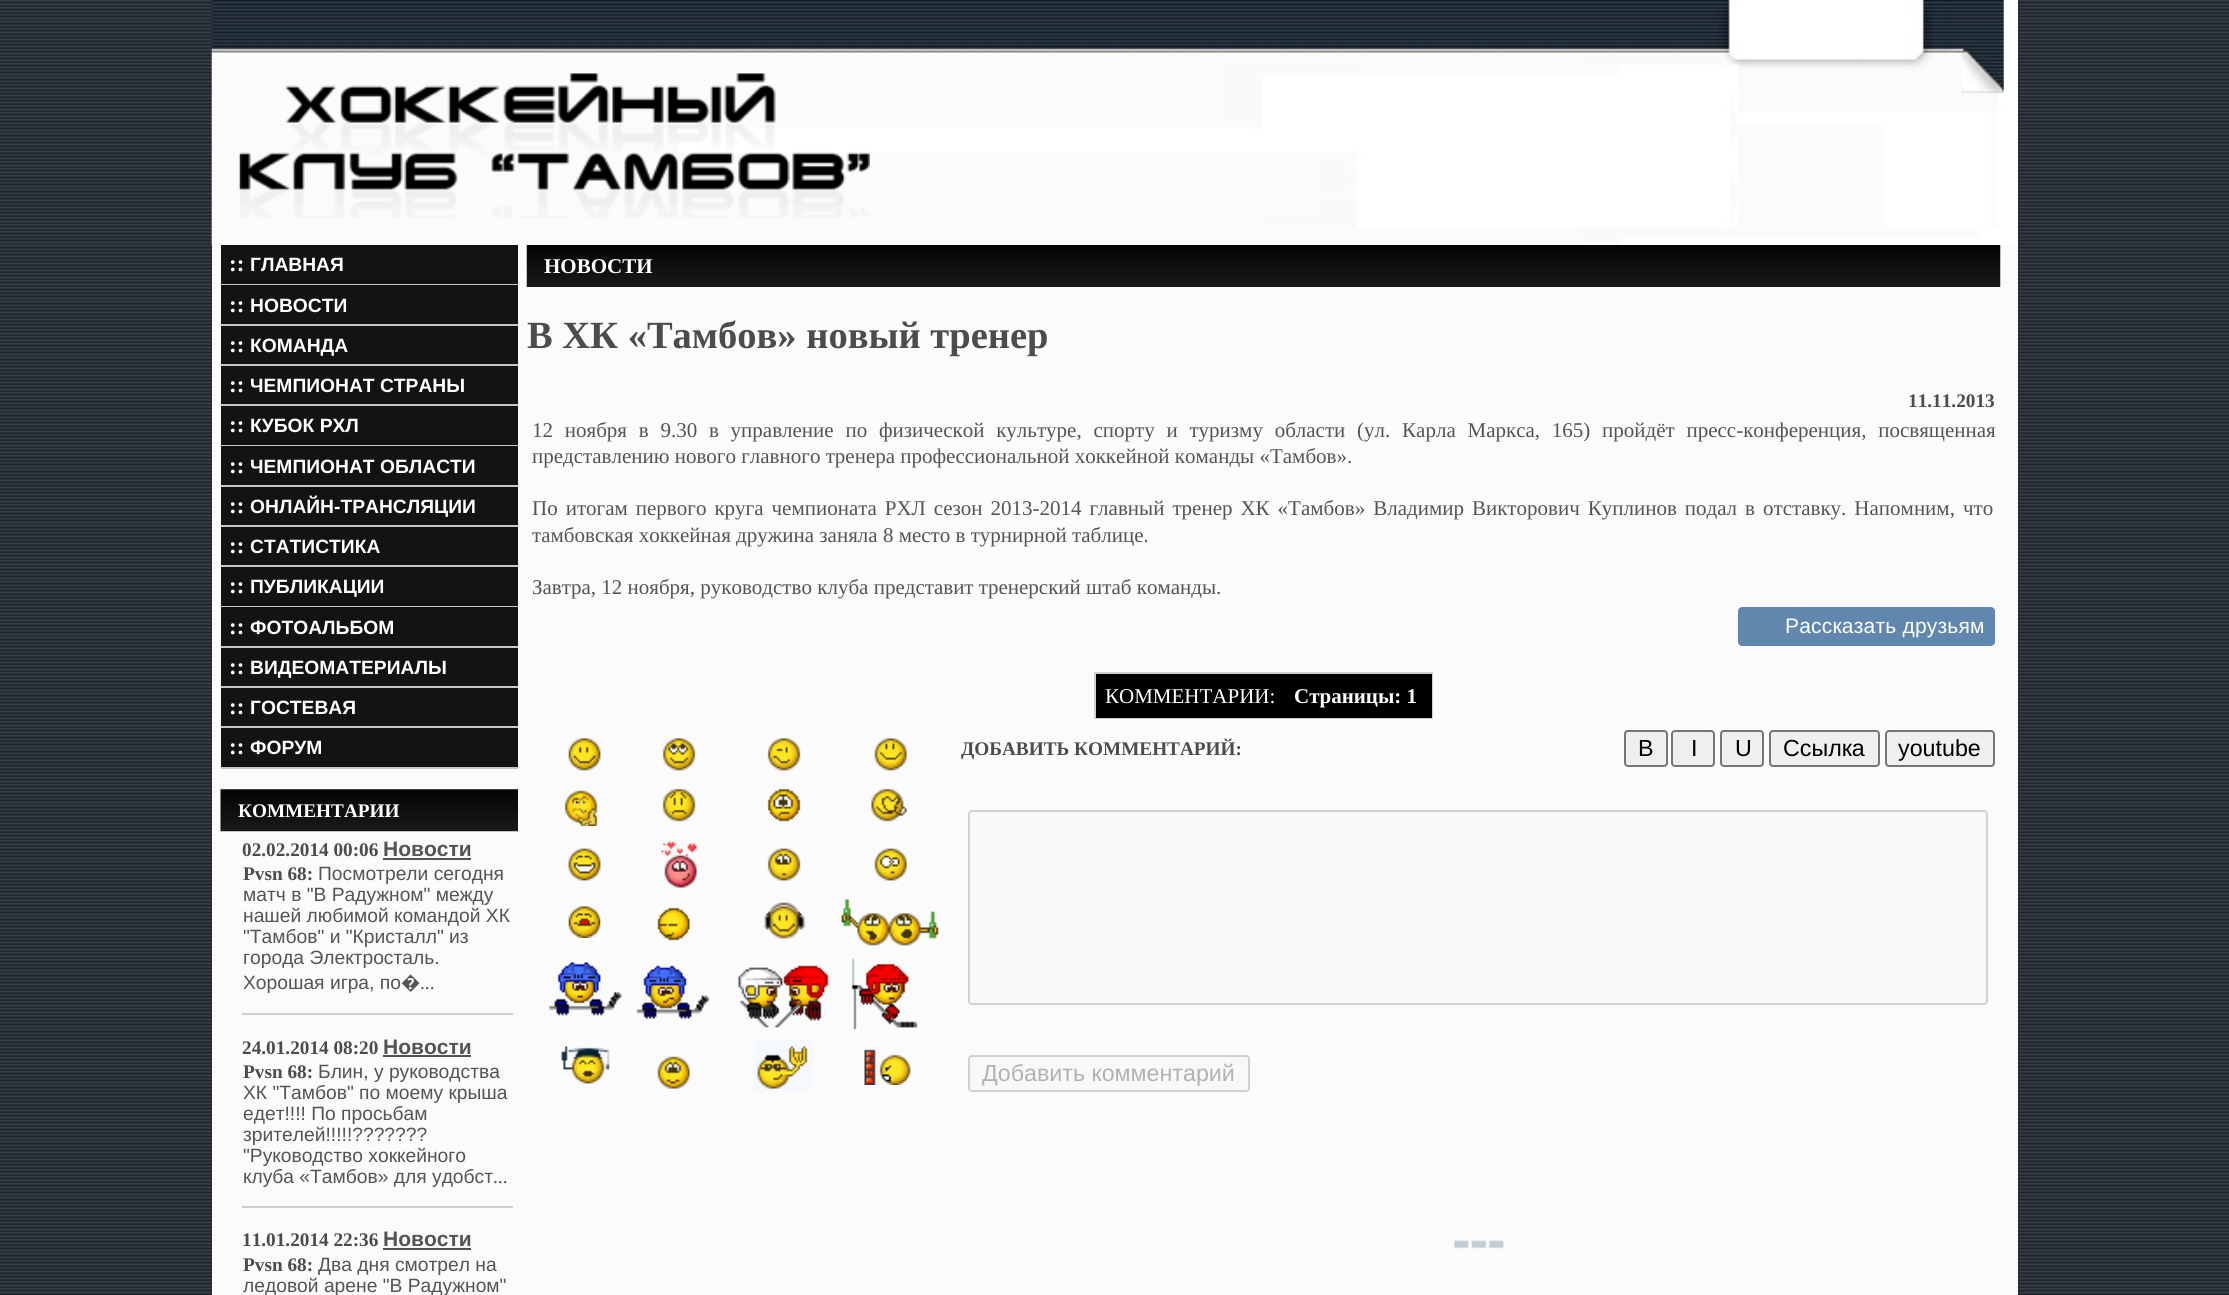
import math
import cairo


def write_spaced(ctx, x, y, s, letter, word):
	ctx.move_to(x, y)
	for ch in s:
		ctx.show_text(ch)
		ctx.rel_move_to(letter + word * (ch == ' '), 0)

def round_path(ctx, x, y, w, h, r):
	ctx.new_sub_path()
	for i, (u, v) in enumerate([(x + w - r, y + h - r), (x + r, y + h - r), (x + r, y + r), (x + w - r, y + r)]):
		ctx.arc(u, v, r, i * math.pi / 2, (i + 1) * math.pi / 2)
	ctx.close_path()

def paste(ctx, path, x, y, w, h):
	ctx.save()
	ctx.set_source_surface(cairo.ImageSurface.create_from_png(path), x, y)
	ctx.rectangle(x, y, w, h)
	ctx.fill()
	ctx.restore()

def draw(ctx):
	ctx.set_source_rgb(1, 1, 1)
	ctx.paint()
	paste(ctx, 'media/1.png', 0, 0, 2229, 1295)
	ctx.set_source_rgb(1, 1, 1)
	ctx.rectangle(2003, 0, 15, 245)
	ctx.fill()
	paste(ctx, 'media/2.png', 211, 0, 1793, 245)
	paste(ctx, 'media/3.png', 239, 73, 631, 145)
	ctx.set_source_rgb(0.984, 0.984, 0.984)
	ctx.rectangle(212, 245, 1806, 1050)
	ctx.fill()
	ctx.set_source_rgb(0.078, 0.075, 0.075)
	ctx.rectangle(221, 245, 297, 39)
	ctx.fill()
	ctx.set_source_rgb(0.773, 0.776, 0.8)
	ctx.rectangle(221, 284, 297, 1)
	ctx.fill()
	ctx.select_font_face('Liberation Serif', cairo.FONT_SLANT_NORMAL, cairo.FONT_WEIGHT_BOLD)
	ctx.set_font_size(23)
	ctx.set_source_rgb(1, 1, 1)
	ctx.move_to(229, 271)
	ctx.show_text('::')
	ctx.select_font_face('Liberation Sans', cairo.FONT_SLANT_NORMAL, cairo.FONT_WEIGHT_BOLD)
	ctx.set_font_size(19.25)
	ctx.move_to(250, 271)
	ctx.show_text('ГЛАВНАЯ')
	ctx.set_source_rgb(0.078, 0.075, 0.075)
	ctx.rectangle(221, 285, 297, 39)
	ctx.fill()
	ctx.set_source_rgb(0.773, 0.776, 0.8)
	ctx.rectangle(221, 324, 297, 2)
	ctx.fill()
	ctx.select_font_face('Liberation Serif', cairo.FONT_SLANT_NORMAL, cairo.FONT_WEIGHT_BOLD)
	ctx.set_font_size(23)
	ctx.set_source_rgb(1, 1, 1)
	ctx.move_to(229, 312)
	ctx.show_text('::')
	ctx.select_font_face('Liberation Sans', cairo.FONT_SLANT_NORMAL, cairo.FONT_WEIGHT_BOLD)
	ctx.set_font_size(19.25)
	ctx.move_to(250, 312)
	ctx.show_text('НОВОСТИ')
	ctx.set_source_rgb(0.078, 0.075, 0.075)
	ctx.rectangle(221, 326, 297, 38)
	ctx.fill()
	ctx.set_source_rgb(0.773, 0.776, 0.8)
	ctx.rectangle(221, 364, 297, 2)
	ctx.fill()
	ctx.select_font_face('Liberation Serif', cairo.FONT_SLANT_NORMAL, cairo.FONT_WEIGHT_BOLD)
	ctx.set_font_size(23)
	ctx.set_source_rgb(1, 1, 1)
	ctx.move_to(229, 352)
	ctx.show_text('::')
	ctx.select_font_face('Liberation Sans', cairo.FONT_SLANT_NORMAL, cairo.FONT_WEIGHT_BOLD)
	ctx.set_font_size(19.25)
	ctx.move_to(250, 352)
	ctx.show_text('КОМАНДА')
	ctx.set_source_rgb(0.078, 0.075, 0.075)
	ctx.rectangle(221, 366, 297, 38)
	ctx.fill()
	ctx.set_source_rgb(0.773, 0.776, 0.8)
	ctx.rectangle(221, 404, 297, 2)
	ctx.fill()
	ctx.select_font_face('Liberation Serif', cairo.FONT_SLANT_NORMAL, cairo.FONT_WEIGHT_BOLD)
	ctx.set_font_size(23)
	ctx.set_source_rgb(1, 1, 1)
	ctx.move_to(229, 392)
	ctx.show_text('::')
	ctx.select_font_face('Liberation Sans', cairo.FONT_SLANT_NORMAL, cairo.FONT_WEIGHT_BOLD)
	ctx.set_font_size(19.25)
	ctx.move_to(250, 392)
	ctx.show_text('ЧЕМПИОНАТ СТРАНЫ')
	ctx.set_source_rgb(0.078, 0.075, 0.075)
	ctx.rectangle(221, 406, 297, 39)
	ctx.fill()
	ctx.set_source_rgb(0.773, 0.776, 0.8)
	ctx.rectangle(221, 445, 297, 1)
	ctx.fill()
	ctx.select_font_face('Liberation Serif', cairo.FONT_SLANT_NORMAL, cairo.FONT_WEIGHT_BOLD)
	ctx.set_font_size(23)
	ctx.set_source_rgb(1, 1, 1)
	ctx.move_to(229, 432)
	ctx.show_text('::')
	ctx.select_font_face('Liberation Sans', cairo.FONT_SLANT_NORMAL, cairo.FONT_WEIGHT_BOLD)
	ctx.set_font_size(19.25)
	ctx.move_to(250, 432)
	ctx.show_text('КУБОК РХЛ')
	ctx.set_source_rgb(0.078, 0.075, 0.075)
	ctx.rectangle(221, 446, 297, 39)
	ctx.fill()
	ctx.set_source_rgb(0.773, 0.776, 0.8)
	ctx.rectangle(221, 485, 297, 2)
	ctx.fill()
	ctx.select_font_face('Liberation Serif', cairo.FONT_SLANT_NORMAL, cairo.FONT_WEIGHT_BOLD)
	ctx.set_font_size(23)
	ctx.set_source_rgb(1, 1, 1)
	ctx.move_to(229, 473)
	ctx.show_text('::')
	ctx.select_font_face('Liberation Sans', cairo.FONT_SLANT_NORMAL, cairo.FONT_WEIGHT_BOLD)
	ctx.set_font_size(19.25)
	ctx.move_to(250, 473)
	ctx.show_text('ЧЕМПИОНАТ ОБЛАСТИ')
	ctx.set_source_rgb(0.078, 0.075, 0.075)
	ctx.rectangle(221, 487, 297, 38)
	ctx.fill()
	ctx.set_source_rgb(0.773, 0.776, 0.8)
	ctx.rectangle(221, 525, 297, 2)
	ctx.fill()
	ctx.select_font_face('Liberation Serif', cairo.FONT_SLANT_NORMAL, cairo.FONT_WEIGHT_BOLD)
	ctx.set_font_size(23)
	ctx.set_source_rgb(1, 1, 1)
	ctx.move_to(229, 513)
	ctx.show_text('::')
	ctx.select_font_face('Liberation Sans', cairo.FONT_SLANT_NORMAL, cairo.FONT_WEIGHT_BOLD)
	ctx.set_font_size(19.25)
	ctx.move_to(250, 513)
	ctx.show_text('ОНЛАЙН-ТРАНСЛЯЦИИ')
	ctx.set_source_rgb(0.078, 0.075, 0.075)
	ctx.rectangle(221, 527, 297, 38)
	ctx.fill()
	ctx.set_source_rgb(0.773, 0.776, 0.8)
	ctx.rectangle(221, 565, 297, 2)
	ctx.fill()
	ctx.select_font_face('Liberation Serif', cairo.FONT_SLANT_NORMAL, cairo.FONT_WEIGHT_BOLD)
	ctx.set_font_size(23)
	ctx.set_source_rgb(1, 1, 1)
	ctx.move_to(229, 553)
	ctx.show_text('::')
	ctx.select_font_face('Liberation Sans', cairo.FONT_SLANT_NORMAL, cairo.FONT_WEIGHT_BOLD)
	ctx.set_font_size(19.25)
	ctx.move_to(250, 553)
	ctx.show_text('СТАТИСТИКА')
	ctx.set_source_rgb(0.078, 0.075, 0.075)
	ctx.rectangle(221, 567, 297, 39)
	ctx.fill()
	ctx.set_source_rgb(0.773, 0.776, 0.8)
	ctx.rectangle(221, 606, 297, 1)
	ctx.fill()
	ctx.select_font_face('Liberation Serif', cairo.FONT_SLANT_NORMAL, cairo.FONT_WEIGHT_BOLD)
	ctx.set_font_size(23)
	ctx.set_source_rgb(1, 1, 1)
	ctx.move_to(229, 593)
	ctx.show_text('::')
	ctx.select_font_face('Liberation Sans', cairo.FONT_SLANT_NORMAL, cairo.FONT_WEIGHT_BOLD)
	ctx.set_font_size(19.25)
	ctx.move_to(250, 593)
	ctx.show_text('ПУБЛИКАЦИИ')
	ctx.set_source_rgb(0.078, 0.075, 0.075)
	ctx.rectangle(221, 607, 297, 39)
	ctx.fill()
	ctx.set_source_rgb(0.773, 0.776, 0.8)
	ctx.rectangle(221, 646, 297, 2)
	ctx.fill()
	ctx.select_font_face('Liberation Serif', cairo.FONT_SLANT_NORMAL, cairo.FONT_WEIGHT_BOLD)
	ctx.set_font_size(23)
	ctx.set_source_rgb(1, 1, 1)
	ctx.move_to(229, 634)
	ctx.show_text('::')
	ctx.select_font_face('Liberation Sans', cairo.FONT_SLANT_NORMAL, cairo.FONT_WEIGHT_BOLD)
	ctx.set_font_size(19.25)
	ctx.move_to(250, 634)
	ctx.show_text('ФОТОАЛЬБОМ')
	ctx.set_source_rgb(0.078, 0.075, 0.075)
	ctx.rectangle(221, 648, 297, 38)
	ctx.fill()
	ctx.set_source_rgb(0.773, 0.776, 0.8)
	ctx.rectangle(221, 686, 297, 2)
	ctx.fill()
	ctx.select_font_face('Liberation Serif', cairo.FONT_SLANT_NORMAL, cairo.FONT_WEIGHT_BOLD)
	ctx.set_font_size(23)
	ctx.set_source_rgb(1, 1, 1)
	ctx.move_to(229, 674)
	ctx.show_text('::')
	ctx.select_font_face('Liberation Sans', cairo.FONT_SLANT_NORMAL, cairo.FONT_WEIGHT_BOLD)
	ctx.set_font_size(19.25)
	ctx.move_to(250, 674)
	ctx.show_text('ВИДЕОМАТЕРИАЛЫ')
	ctx.set_source_rgb(0.078, 0.075, 0.075)
	ctx.rectangle(221, 688, 297, 38)
	ctx.fill()
	ctx.set_source_rgb(0.773, 0.776, 0.8)
	ctx.rectangle(221, 726, 297, 2)
	ctx.fill()
	ctx.select_font_face('Liberation Serif', cairo.FONT_SLANT_NORMAL, cairo.FONT_WEIGHT_BOLD)
	ctx.set_font_size(23)
	ctx.set_source_rgb(1, 1, 1)
	ctx.move_to(229, 714)
	ctx.show_text('::')
	ctx.select_font_face('Liberation Sans', cairo.FONT_SLANT_NORMAL, cairo.FONT_WEIGHT_BOLD)
	ctx.set_font_size(19.25)
	ctx.move_to(250, 714)
	ctx.show_text('ГОСТЕВАЯ')
	ctx.set_source_rgb(0.078, 0.075, 0.075)
	ctx.rectangle(221, 728, 297, 39)
	ctx.fill()
	ctx.set_source_rgb(0.773, 0.776, 0.8)
	ctx.rectangle(221, 767, 297, 2)
	ctx.fill()
	ctx.select_font_face('Liberation Serif', cairo.FONT_SLANT_NORMAL, cairo.FONT_WEIGHT_BOLD)
	ctx.set_font_size(23)
	ctx.set_source_rgb(1, 1, 1)
	ctx.move_to(229, 754)
	ctx.show_text('::')
	ctx.select_font_face('Liberation Sans', cairo.FONT_SLANT_NORMAL, cairo.FONT_WEIGHT_BOLD)
	ctx.set_font_size(19.25)
	ctx.move_to(250, 754)
	ctx.show_text('ФОРУМ')
	paste(ctx, 'media/4.png', 220, 789, 298, 43)
	ctx.select_font_face('Liberation Serif', cairo.FONT_SLANT_NORMAL, cairo.FONT_WEIGHT_BOLD)
	ctx.move_to(238, 817)
	ctx.show_text('КОММЕНТАРИИ')
	ctx.set_source_rgb(0.298, 0.298, 0.298)
	ctx.move_to(242, 856)
	ctx.show_text('02.02.2014 00:06')
	ctx.select_font_face('Liberation Sans', cairo.FONT_SLANT_NORMAL, cairo.FONT_WEIGHT_BOLD)
	ctx.set_font_size(21)
	ctx.set_source_rgb(0.329, 0.329, 0.329)
	ctx.move_to(383, 856)
	ctx.show_text('Новости')
	ctx.rectangle(383, 858, 88, 2)
	ctx.fill()
	ctx.select_font_face('Liberation Serif', cairo.FONT_SLANT_NORMAL, cairo.FONT_WEIGHT_BOLD)
	ctx.set_font_size(19.25)
	ctx.set_source_rgb(0.298, 0.298, 0.298)
	ctx.move_to(243, 880)
	ctx.show_text('Pvsn 68:')
	ctx.select_font_face('Liberation Sans')
	ctx.set_source_rgb(0.329, 0.329, 0.329)
	for x, y, s in [
		(318, 880, 'Посмотрели сегодня'),
		(243, 901, 'матч в "В Радужном" между'),
		(243, 922, 'нашей любимой командой ХК'),
		(243, 943, '"Тамбов" и "Кристалл" из'),
		(243, 964, 'города Электросталь.'),
		(243, 989, 'Хорошая игра, по'),
	]:
		ctx.move_to(x, y)
		ctx.show_text(s)
	ctx.select_font_face('Noto Sans')
	ctx.move_to(401, 989)
	ctx.show_text('�')
	ctx.select_font_face('Liberation Serif')
	ctx.set_source_rgb(0.298, 0.298, 0.298)
	ctx.move_to(420, 989)
	ctx.show_text('...')
	ctx.set_source_rgb(0.816, 0.816, 0.816)
	ctx.rectangle(242, 1013, 271, 2)
	ctx.fill()
	ctx.select_font_face('Liberation Serif', cairo.FONT_SLANT_NORMAL, cairo.FONT_WEIGHT_BOLD)
	ctx.set_source_rgb(0.298, 0.298, 0.298)
	ctx.move_to(242, 1054)
	ctx.show_text('24.01.2014 08:20')
	ctx.select_font_face('Liberation Sans', cairo.FONT_SLANT_NORMAL, cairo.FONT_WEIGHT_BOLD)
	ctx.set_font_size(21)
	ctx.set_source_rgb(0.329, 0.329, 0.329)
	ctx.move_to(383, 1054)
	ctx.show_text('Новости')
	ctx.rectangle(383, 1055, 88, 2)
	ctx.fill()
	ctx.select_font_face('Liberation Serif', cairo.FONT_SLANT_NORMAL, cairo.FONT_WEIGHT_BOLD)
	ctx.set_font_size(19.25)
	ctx.set_source_rgb(0.298, 0.298, 0.298)
	ctx.move_to(243, 1078)
	ctx.show_text('Pvsn 68:')
	ctx.select_font_face('Liberation Sans')
	ctx.set_source_rgb(0.329, 0.329, 0.329)
	for x, y, s in [
		(318, 1078, 'Блин, у руководства'),
		(243, 1099, 'ХК "Тамбов" по моему крыша'),
		(243, 1120, 'едет!!!! По просьбам'),
		(243, 1141, 'зрителей!!!!!???????'),
		(243, 1162, '"Руководство хоккейного'),
		(243, 1183, 'клуба «Тамбов» для удобст'),
	]:
		ctx.move_to(x, y)
		ctx.show_text(s)
	ctx.select_font_face('Liberation Serif')
	ctx.set_source_rgb(0.298, 0.298, 0.298)
	ctx.move_to(493, 1183)
	ctx.show_text('...')
	ctx.set_source_rgb(0.816, 0.816, 0.816)
	ctx.rectangle(242, 1206, 271, 2)
	ctx.fill()
	ctx.select_font_face('Liberation Serif', cairo.FONT_SLANT_NORMAL, cairo.FONT_WEIGHT_BOLD)
	ctx.set_source_rgb(0.298, 0.298, 0.298)
	ctx.move_to(242, 1246)
	ctx.show_text('11.01.2014 22:36')
	ctx.select_font_face('Liberation Sans', cairo.FONT_SLANT_NORMAL, cairo.FONT_WEIGHT_BOLD)
	ctx.set_font_size(21)
	ctx.set_source_rgb(0.329, 0.329, 0.329)
	ctx.move_to(383, 1246)
	ctx.show_text('Новости')
	ctx.rectangle(383, 1248, 88, 2)
	ctx.fill()
	ctx.select_font_face('Liberation Serif', cairo.FONT_SLANT_NORMAL, cairo.FONT_WEIGHT_BOLD)
	ctx.set_font_size(19.25)
	ctx.set_source_rgb(0.298, 0.298, 0.298)
	ctx.move_to(243, 1271)
	ctx.show_text('Pvsn 68:')
	ctx.select_font_face('Liberation Sans')
	ctx.set_source_rgb(0.329, 0.329, 0.329)
	ctx.move_to(318, 1271)
	ctx.show_text('Два дня смотрел на')
	ctx.move_to(243, 1292)
	ctx.show_text('ледовой арене "В Радужном"')
	paste(ctx, 'media/5.png', 526, 245, 1475, 42)
	ctx.select_font_face('Liberation Serif', cairo.FONT_SLANT_NORMAL, cairo.FONT_WEIGHT_BOLD)
	ctx.set_font_size(21)
	ctx.set_source_rgb(1, 1, 1)
	ctx.move_to(544, 273)
	ctx.show_text('НОВОСТИ')
	ctx.set_font_size(38.5)
	ctx.set_source_rgb(0.298, 0.298, 0.298)
	ctx.move_to(527, 348)
	ctx.show_text('В ХК «Тамбов» новый тренер')
	ctx.set_font_size(19.25)
	ctx.move_to(1908, 407)
	ctx.show_text('11.11.2013')
	ctx.select_font_face('Liberation Serif')
	ctx.set_font_size(21)
	ctx.set_source_rgb(0.329, 0.329, 0.329)
	write_spaced(ctx, 532, 437, '12 ноября в 9.30 в управление по физической культуре, спорту и туризму области (ул. Карла Маркса, 165) пройдёт пресс-конференция, посвященная', 0, 6.5)
	ctx.move_to(532, 463)
	ctx.show_text('представлению нового главного тренера профессиональной хоккейной команды «Тамбов».')
	write_spaced(ctx, 532, 515, 'По итогам первого круга чемпионата РХЛ сезон 2013-2014 главный тренер ХК «Тамбов» Владимир Викторович Куплинов подал в отставку. Напомним, что', 0, 2.75)
	ctx.move_to(532, 542)
	ctx.show_text('тамбовская хоккейная дружина заняла 8 место в турнирной таблице.')
	ctx.move_to(532, 594)
	ctx.show_text('Завтра, 12 ноября, руководство клуба представит тренерский штаб команды.')
	ctx.set_source_rgb(0.384, 0.529, 0.682)
	ctx.new_path()
	ctx.move_to(1742, 607)
	ctx.line_to(1785, 607)
	ctx.line_to(1785, 646)
	ctx.line_to(1742, 646)
	ctx.curve_to(1740, 646, 1738, 644, 1738, 642)
	ctx.line_to(1738, 611)
	ctx.curve_to(1738, 609, 1740, 607, 1742, 607)
	ctx.close_path()
	ctx.fill()
	ctx.new_path()
	ctx.move_to(1785, 607)
	ctx.line_to(1991, 607)
	ctx.curve_to(1993, 607, 1995, 609, 1995, 611)
	ctx.line_to(1995, 642)
	ctx.curve_to(1995, 644, 1993, 646, 1991, 646)
	ctx.line_to(1785, 646)
	ctx.close_path()
	ctx.fill()
	ctx.select_font_face('Liberation Sans')
	ctx.set_source_rgb(1, 1, 1)
	write_spaced(ctx, 1785, 633, 'Рассказать друзьям', 0.2, 0)
	ctx.set_source_rgb(0.816, 0.816, 0.816)
	ctx.rectangle(1094, 672, 339, 47)
	ctx.fill()
	ctx.set_source_rgb(0, 0, 0)
	ctx.rectangle(1096, 674, 336, 44)
	ctx.fill()
	ctx.select_font_face('Liberation Serif')
	ctx.set_source_rgb(1, 1, 1)
	ctx.move_to(1105, 703)
	ctx.show_text('КОММЕНТАРИИ:')
	ctx.select_font_face('Liberation Serif', cairo.FONT_SLANT_NORMAL, cairo.FONT_WEIGHT_BOLD)
	ctx.move_to(1294, 703)
	ctx.show_text('Страницы: 1')
	paste(ctx, 'media/6.png', 568, 738, 33, 33)
	paste(ctx, 'media/7.png', 662, 738, 34, 33)
	paste(ctx, 'media/8.png', 767, 738, 34, 33)
	paste(ctx, 'media/9.png', 874, 738, 33, 33)
	paste(ctx, 'media/10.png', 564, 790, 34, 36)
	paste(ctx, 'media/11.png', 662, 788, 34, 34)
	paste(ctx, 'media/12.png', 767, 788, 34, 34)
	paste(ctx, 'media/13.png', 871, 788, 36, 34)
	paste(ctx, 'media/14.png', 568, 848, 33, 33)
	paste(ctx, 'media/15.png', 661, 841, 36, 47)
	paste(ctx, 'media/16.png', 767, 848, 34, 33)
	paste(ctx, 'media/17.png', 874, 848, 33, 33)
	paste(ctx, 'media/18.png', 568, 906, 33, 32)
	paste(ctx, 'media/19.png', 657, 907, 33, 34)
	paste(ctx, 'media/20.png', 764, 902, 42, 37)
	paste(ctx, 'media/21.png', 841, 899, 98, 47)
	paste(ctx, 'media/22.png', 549, 962, 73, 54)
	paste(ctx, 'media/23.png', 636, 965, 74, 54)
	paste(ctx, 'media/24.png', 738, 965, 91, 63)
	paste(ctx, 'media/25.png', 851, 958, 67, 72)
	paste(ctx, 'media/26.png', 561, 1046, 49, 38)
	paste(ctx, 'media/27.png', 657, 1056, 33, 33)
	paste(ctx, 'media/28.png', 754, 1040, 58, 52)
	paste(ctx, 'media/29.png', 864, 1049, 47, 36)
	ctx.set_font_size(19.25)
	ctx.set_source_rgb(0.298, 0.298, 0.298)
	ctx.move_to(961, 755)
	ctx.show_text('ДОБАВИТЬ КОММЕНТАРИЙ:')
	ctx.set_source_rgb(0.937, 0.937, 0.937)
	round_path(ctx, 1625, 731, 42, 35, 3)
	ctx.fill_preserve()
	ctx.set_source_rgb(0.463, 0.463, 0.463)
	ctx.stroke()
	ctx.select_font_face('Liberation Sans')
	ctx.set_font_size(23.25)
	ctx.set_source_rgb(0, 0, 0)
	ctx.move_to(1638, 756)
	ctx.show_text('B')
	ctx.set_source_rgb(0.937, 0.937, 0.937)
	round_path(ctx, 1672, 731, 42, 35, 3)
	ctx.fill_preserve()
	ctx.set_source_rgb(0.463, 0.463, 0.463)
	ctx.stroke()
	ctx.set_source_rgb(0, 0, 0)
	ctx.move_to(1691, 756)
	ctx.show_text('I')
	ctx.set_source_rgb(0.937, 0.937, 0.937)
	round_path(ctx, 1721, 731, 42, 35, 3)
	ctx.fill_preserve()
	ctx.set_source_rgb(0.463, 0.463, 0.463)
	ctx.stroke()
	ctx.set_source_rgb(0, 0, 0)
	ctx.move_to(1735, 756)
	ctx.show_text('U')
	ctx.set_source_rgb(0.937, 0.937, 0.937)
	round_path(ctx, 1770, 731, 109, 35, 3)
	ctx.fill_preserve()
	ctx.set_source_rgb(0.463, 0.463, 0.463)
	ctx.stroke()
	ctx.set_source_rgb(0, 0, 0)
	ctx.move_to(1783, 756)
	ctx.show_text('Ссылка')
	ctx.set_source_rgb(0.937, 0.937, 0.937)
	round_path(ctx, 1886, 731, 108, 35, 3)
	ctx.fill_preserve()
	ctx.set_source_rgb(0.463, 0.463, 0.463)
	ctx.stroke()
	ctx.set_source_rgb(0, 0, 0)
	ctx.move_to(1898, 756)
	ctx.show_text('youtube')
	ctx.set_source_rgb(0.973, 0.973, 0.973)
	round_path(ctx, 969, 811, 1018, 193, 3)
	ctx.fill_preserve()
	ctx.set_source_rgb(0.82, 0.82, 0.82)
	ctx.stroke()
	ctx.set_source_rgb(0.969, 0.969, 0.969)
	round_path(ctx, 969, 1056, 280, 35, 3)
	ctx.fill_preserve()
	ctx.set_source_rgb(0.816, 0.816, 0.816)
	ctx.stroke()
	ctx.set_source_rgb(0.698, 0.698, 0.698)
	ctx.move_to(982, 1081)
	ctx.show_text('Добавить комментарий')
	paste(ctx, 'media/30.png', 1454, 1240, 50, 9)


surface = cairo.ImageSurface(cairo.FORMAT_RGB24, 2229, 1295)
ctx = cairo.Context(surface)
options = cairo.FontOptions()
options.set_hint_metrics(cairo.HINT_METRICS_OFF)
options.set_hint_style(cairo.HINT_STYLE_NONE)
ctx.set_font_options(options)
ctx.set_miter_limit(4)
draw(ctx)
surface.write_to_png('image.png')
